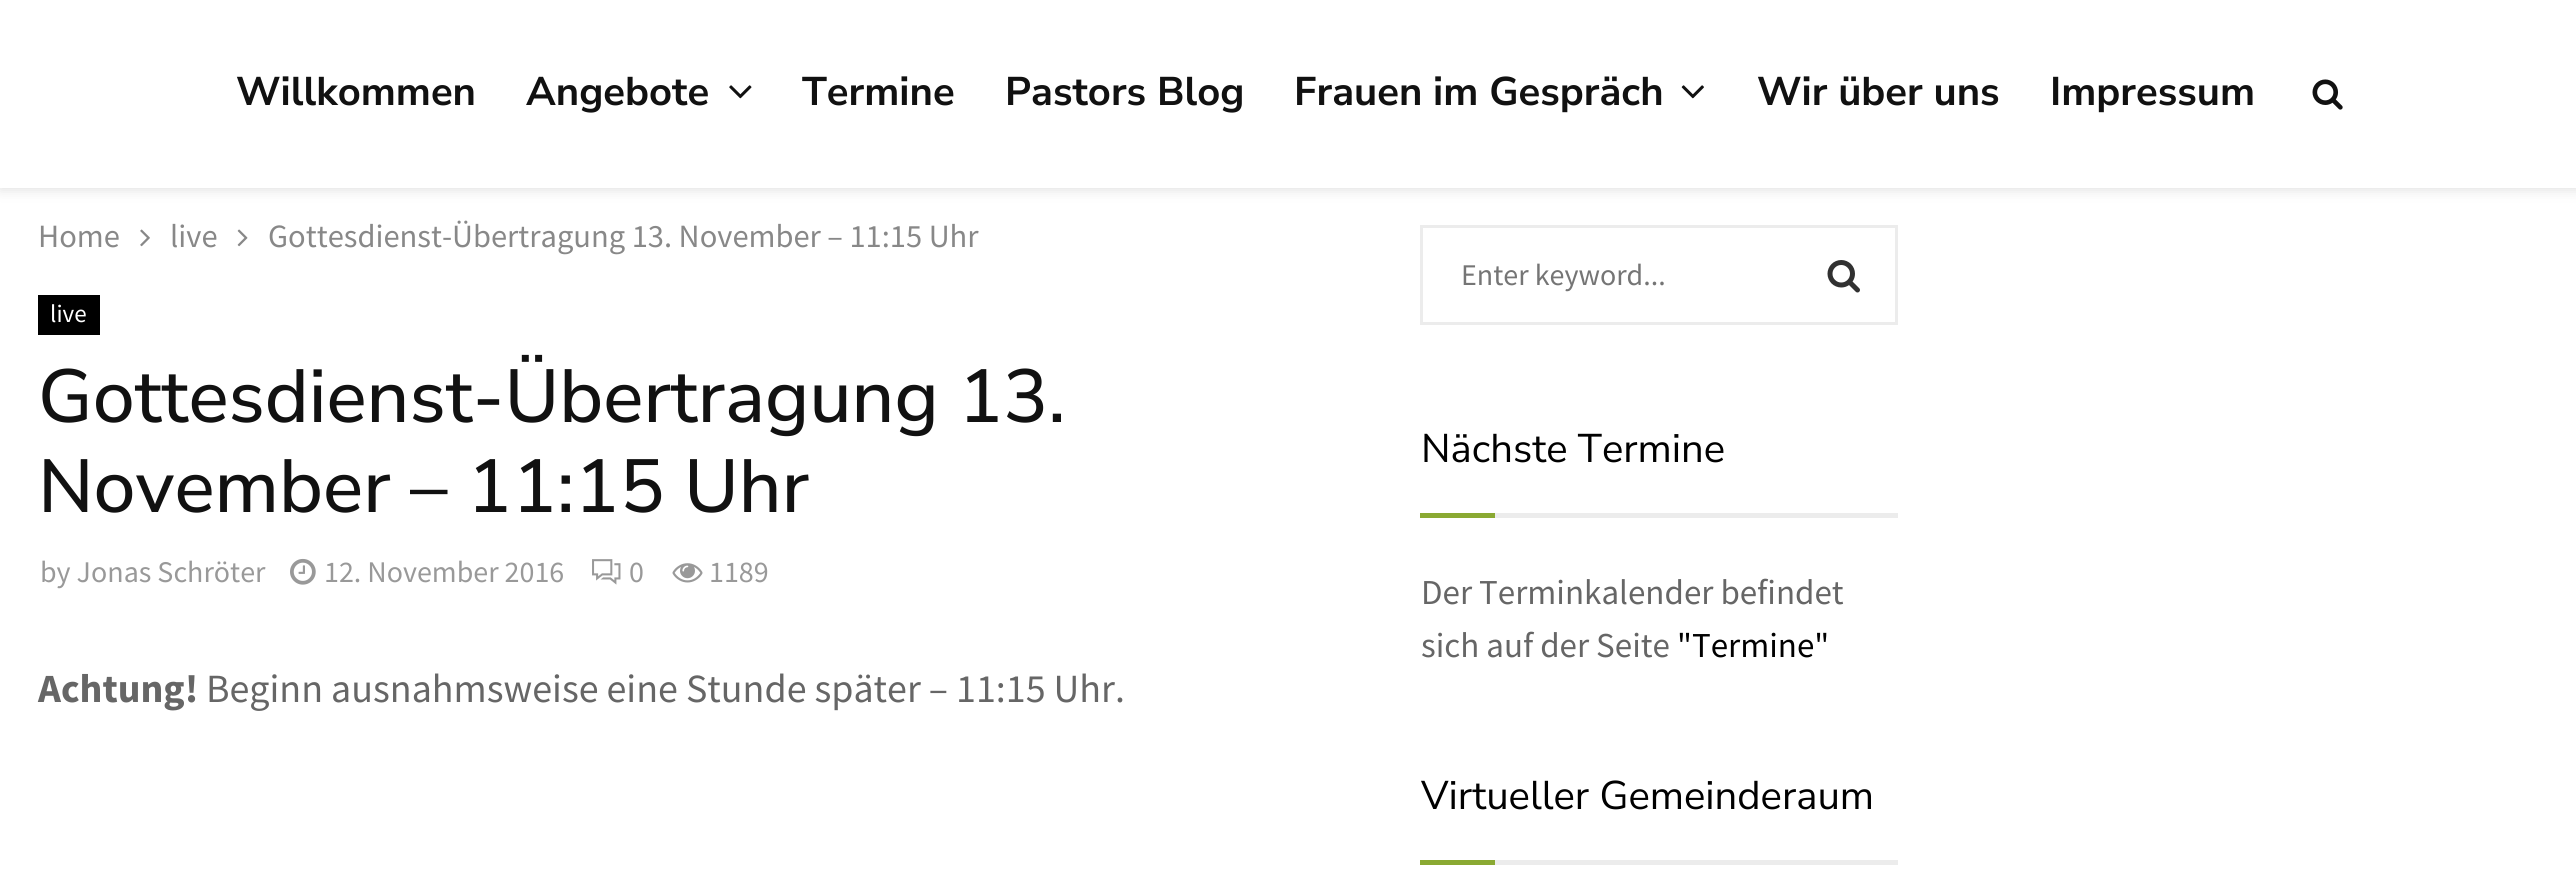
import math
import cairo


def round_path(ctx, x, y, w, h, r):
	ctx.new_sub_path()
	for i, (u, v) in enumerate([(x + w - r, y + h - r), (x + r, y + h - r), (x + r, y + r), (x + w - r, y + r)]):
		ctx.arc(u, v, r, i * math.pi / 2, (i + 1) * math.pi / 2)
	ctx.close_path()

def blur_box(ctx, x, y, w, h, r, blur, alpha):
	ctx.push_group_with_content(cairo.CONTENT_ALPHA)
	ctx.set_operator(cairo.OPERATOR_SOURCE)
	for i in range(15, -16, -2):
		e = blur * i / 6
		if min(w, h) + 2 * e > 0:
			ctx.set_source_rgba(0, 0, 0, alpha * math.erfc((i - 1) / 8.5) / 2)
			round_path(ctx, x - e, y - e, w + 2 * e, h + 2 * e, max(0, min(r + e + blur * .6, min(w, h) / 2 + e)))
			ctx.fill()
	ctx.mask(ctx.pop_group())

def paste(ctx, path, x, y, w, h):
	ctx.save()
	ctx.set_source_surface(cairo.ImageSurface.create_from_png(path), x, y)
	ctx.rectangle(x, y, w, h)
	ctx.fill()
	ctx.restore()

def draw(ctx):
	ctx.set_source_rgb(1, 1, 1)
	ctx.paint()
	ctx.set_source_rgb(0.745, 0.745, 0.745)
	blur_box(ctx, 0, 3, 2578, 187, 0, 6, 0.46)
	ctx.set_source_rgb(1, 1, 1)
	ctx.rectangle(0, 0, 2576, 188)
	ctx.fill()
	ctx.select_font_face('Nunito Sans', cairo.FONT_SLANT_NORMAL, cairo.FONT_WEIGHT_BOLD)
	ctx.set_font_size(40)
	ctx.set_source_rgb(0.067, 0.067, 0.067)
	ctx.move_to(236, 105)
	ctx.show_text('Willkommen')
	ctx.move_to(526, 105)
	ctx.show_text('Angebote')
	paste(ctx, 'media/1.png', 729, 85, 23, 14)
	for x, y, s in [
		(802, 105, 'Termine'),
		(1005, 105, 'Pastors Blog'),
		(1294, 105, 'Frauen im Gespräch'),
	]:
		ctx.move_to(x, y)
		ctx.show_text(s)
	paste(ctx, 'media/2.png', 1681, 85, 23, 14)
	ctx.move_to(1757, 105)
	ctx.show_text('Wir über uns')
	ctx.move_to(2050, 105)
	ctx.show_text('Impressum')
	paste(ctx, 'media/3.png', 2312, 79, 31, 31)
	ctx.select_font_face('Source Sans Pro')
	ctx.set_font_size(32.5)
	ctx.set_source_rgb(0.533, 0.533, 0.533)
	ctx.move_to(38, 247)
	ctx.show_text('Home')
	paste(ctx, 'media/4.png', 140, 229, 10, 18)
	ctx.move_to(170, 247)
	ctx.show_text('live')
	paste(ctx, 'media/5.png', 237, 229, 11, 18)
	ctx.move_to(268, 247)
	ctx.show_text('Gottesdienst-Übertragung 13. November – 11:15 Uhr')
	ctx.set_source_rgb(0, 0, 0)
	ctx.rectangle(38, 295, 62, 40)
	ctx.fill()
	ctx.set_font_size(25)
	ctx.set_source_rgb(1, 1, 1)
	ctx.move_to(50, 322)
	ctx.show_text('live')
	ctx.select_font_face('Nunito Sans Medium')
	ctx.set_font_size(75)
	ctx.set_source_rgb(0.067, 0.067, 0.067)
	ctx.move_to(38, 422)
	ctx.show_text('Gottesdienst-Übertragung 13.')
	ctx.move_to(38, 512)
	ctx.show_text('November – 11:15 Uhr')
	ctx.select_font_face('Source Sans Pro')
	ctx.set_font_size(30)
	ctx.set_source_rgb(0.6, 0.6, 0.6)
	ctx.move_to(40, 582)
	ctx.show_text('by Jonas Schröter')
	paste(ctx, 'media/6.png', 290, 558, 26, 27)
	ctx.move_to(324, 582)
	ctx.show_text('12. November 2016')
	paste(ctx, 'media/7.png', 592, 559, 29, 26)
	ctx.move_to(629, 582)
	ctx.show_text('0')
	paste(ctx, 'media/8.png', 672, 563, 31, 20)
	ctx.move_to(709, 582)
	ctx.show_text('1189')
	ctx.select_font_face('Source Sans Pro', cairo.FONT_SLANT_NORMAL, cairo.FONT_WEIGHT_BOLD)
	ctx.set_font_size(40)
	ctx.set_source_rgb(0.4, 0.4, 0.4)
	ctx.move_to(38, 702)
	ctx.show_text('Achtung!')
	ctx.select_font_face('Source Sans Pro')
	ctx.move_to(206, 702)
	ctx.show_text('Beginn ausnahmsweise eine Stunde später – 11:15 Uhr.')
	ctx.rectangle(1421.5, 226.5, 475, 97)
	ctx.set_source_rgb(0.925, 0.925, 0.925)
	ctx.set_line_width(3)
	ctx.stroke()
	ctx.set_font_size(30)
	ctx.set_source_rgb(0.459, 0.459, 0.459)
	ctx.move_to(1461, 285)
	ctx.show_text('Enter keyword...')
	paste(ctx, 'media/9.png', 1827, 260, 33, 33)
	ctx.set_source_rgb(0.925, 0.925, 0.925)
	ctx.rectangle(1495, 513, 403, 5)
	ctx.fill()
	ctx.select_font_face('Nunito Sans')
	ctx.set_font_size(40)
	ctx.set_source_rgb(0, 0, 0)
	ctx.move_to(1421, 462)
	ctx.show_text('Nächste Termine')
	ctx.set_source_rgb(0.541, 0.663, 0.196)
	ctx.rectangle(1420, 513, 75, 5)
	ctx.fill()
	ctx.select_font_face('Source Sans Pro')
	ctx.set_font_size(35)
	ctx.set_source_rgb(0.4, 0.4, 0.4)
	ctx.move_to(1421, 604)
	ctx.show_text('Der Terminkalender befindet')
	ctx.move_to(1421, 657)
	ctx.show_text('sich auf der Seite')
	ctx.set_source_rgb(0, 0, 0)
	ctx.move_to(1677, 657)
	ctx.show_text('"Termine"')
	ctx.set_source_rgb(0.925, 0.925, 0.925)
	ctx.rectangle(1495, 860, 403, 5)
	ctx.fill()
	ctx.select_font_face('Nunito Sans')
	ctx.set_font_size(40)
	ctx.set_source_rgb(0, 0, 0)
	ctx.move_to(1421, 809)
	ctx.show_text('Virtueller Gemeinderaum')
	ctx.set_source_rgb(0.541, 0.663, 0.196)
	ctx.rectangle(1420, 860, 75, 5)
	ctx.fill()


surface = cairo.ImageSurface(cairo.FORMAT_RGB24, 2576, 891)
ctx = cairo.Context(surface)
options = cairo.FontOptions()
options.set_hint_metrics(cairo.HINT_METRICS_OFF)
options.set_hint_style(cairo.HINT_STYLE_NONE)
ctx.set_font_options(options)
ctx.set_miter_limit(4)
draw(ctx)
surface.write_to_png('image.png')
